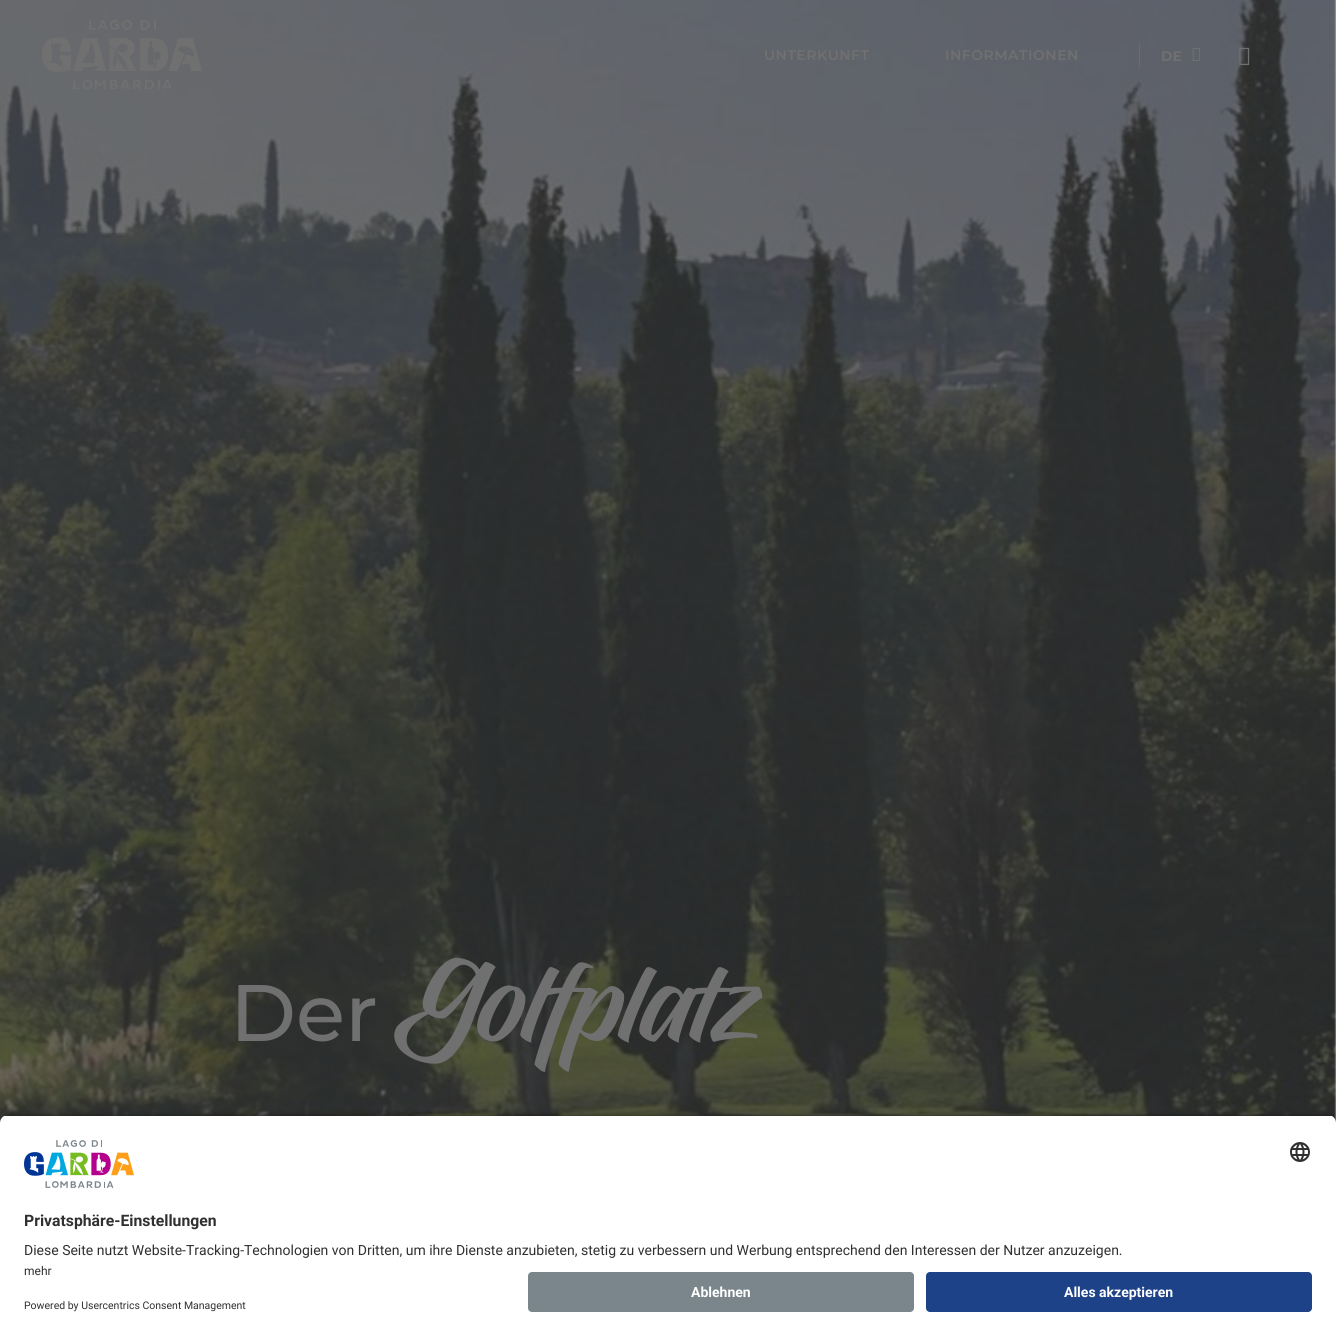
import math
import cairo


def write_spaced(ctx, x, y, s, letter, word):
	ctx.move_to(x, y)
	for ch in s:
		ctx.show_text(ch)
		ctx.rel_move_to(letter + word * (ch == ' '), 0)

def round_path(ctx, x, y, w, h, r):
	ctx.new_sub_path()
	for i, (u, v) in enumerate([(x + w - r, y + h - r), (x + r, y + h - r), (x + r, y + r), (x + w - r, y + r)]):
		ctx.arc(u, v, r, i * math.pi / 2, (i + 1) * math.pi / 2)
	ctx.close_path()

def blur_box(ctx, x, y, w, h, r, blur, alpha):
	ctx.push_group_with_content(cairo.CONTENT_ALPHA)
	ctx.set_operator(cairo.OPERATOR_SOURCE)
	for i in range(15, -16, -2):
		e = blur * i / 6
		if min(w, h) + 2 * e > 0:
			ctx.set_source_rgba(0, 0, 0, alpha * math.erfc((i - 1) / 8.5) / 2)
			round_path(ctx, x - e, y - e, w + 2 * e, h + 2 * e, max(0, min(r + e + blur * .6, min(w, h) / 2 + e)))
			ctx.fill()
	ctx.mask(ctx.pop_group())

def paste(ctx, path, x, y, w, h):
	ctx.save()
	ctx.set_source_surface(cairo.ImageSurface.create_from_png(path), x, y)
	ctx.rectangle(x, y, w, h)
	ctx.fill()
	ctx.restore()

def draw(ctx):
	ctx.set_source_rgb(1, 1, 1)
	ctx.paint()
	paste(ctx, 'media/4.png', 0, 0, 1336, 1123)
	paste(ctx, 'media/1.png', 42, 20, 160, 69)
	ctx.select_font_face('Montserrat SemiBold')
	ctx.set_font_size(14)
	ctx.set_source_rgb(0.439, 0.439, 0.439)
	write_spaced(ctx, 764, 60, 'UNTERKUNFT', 0.5, 0)
	write_spaced(ctx, 945, 60, 'INFORMATIONEN', 0.5, 0)
	ctx.set_source_rgb(0.424, 0.424, 0.424)
	ctx.rectangle(1139, 43, 1, 25)
	ctx.fill()
	ctx.select_font_face('Montserrat', cairo.FONT_SLANT_NORMAL, cairo.FONT_WEIGHT_BOLD)
	ctx.set_source_rgb(0.439, 0.439, 0.439)
	ctx.move_to(1161, 61)
	ctx.show_text('DE')
	paste(ctx, 'media/2.png', 1192, 48, 9, 13)
	paste(ctx, 'media/3.png', 1239, 47, 11, 18)
	ctx.select_font_face('Montserrat Medium')
	ctx.set_font_size(80)
	ctx.move_to(230, 1041)
	ctx.show_text('Der')
	ctx.select_font_face('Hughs')
	ctx.set_font_size(112)
	ctx.move_to(399, 1041)
	ctx.show_text('Golfplatz')
	ctx.set_source_rgb(0, 0, 0)
	blur_box(ctx, 0, 1118, 1336, 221, 8, 3.5, 0.8)
	ctx.save()
	ctx.new_path()
	ctx.move_to(8, 1115)
	ctx.line_to(1328, 1115)
	ctx.curve_to(1332.5, 1115, 1336, 1118.5, 1336, 1123)
	ctx.line_to(1336, 1264)
	ctx.line_to(0, 1264)
	ctx.line_to(0, 1123)
	ctx.curve_to(0, 1118.5, 3.5, 1115, 8, 1115)
	ctx.close_path()
	ctx.clip()
	ctx.set_source_rgb(1, 1, 1)
	ctx.rectangle(0, 1116, 1336, 148)
	ctx.fill()
	ctx.restore()
	paste(ctx, 'media/5.png', 24, 1140, 110, 48)
	paste(ctx, 'media/6.png', 1290, 1142, 20, 20)
	ctx.select_font_face('Roboto', cairo.FONT_SLANT_NORMAL, cairo.FONT_WEIGHT_BOLD)
	ctx.set_font_size(15.75)
	ctx.set_source_rgb(0.188, 0.188, 0.188)
	ctx.move_to(24, 1226)
	ctx.show_text('Privatsphäre-Einstellungen')
	ctx.select_font_face('Roboto')
	ctx.set_font_size(14)
	ctx.move_to(24, 1255)
	ctx.show_text('Diese Seite nutzt Website-Tracking-Technologien von Dritten, um ihre Dienste anzubieten, stetig zu verbessern und Werbung entsprechend den Interessen der Nutzer anzuzeigen.')
	ctx.set_source_rgb(1, 1, 1)
	ctx.rectangle(0, 1264, 1336, 72)
	ctx.fill()
	ctx.set_font_size(12)
	ctx.set_source_rgb(0.188, 0.188, 0.188)
	ctx.move_to(24, 1275)
	ctx.show_text('mehr')
	ctx.set_font_size(10.5)
	ctx.move_to(24, 1309)
	ctx.show_text('Powered by Usercentrics Consent Management')
	ctx.set_source_rgb(0.482, 0.525, 0.549)
	round_path(ctx, 528, 1272, 386, 40, 4)
	ctx.fill()
	ctx.select_font_face('Roboto', cairo.FONT_SLANT_NORMAL, cairo.FONT_WEIGHT_BOLD)
	ctx.set_font_size(14)
	ctx.set_source_rgb(1, 1, 1)
	ctx.move_to(691, 1297)
	ctx.show_text('Ablehnen')
	ctx.set_source_rgb(0.118, 0.259, 0.529)
	round_path(ctx, 926, 1272, 386, 40, 4)
	ctx.fill()
	ctx.set_source_rgb(1, 1, 1)
	ctx.move_to(1064, 1297)
	ctx.show_text('Alles akzeptieren')


surface = cairo.ImageSurface(cairo.FORMAT_RGB24, 1336, 1336)
ctx = cairo.Context(surface)
options = cairo.FontOptions()
options.set_hint_metrics(cairo.HINT_METRICS_OFF)
options.set_hint_style(cairo.HINT_STYLE_NONE)
ctx.set_font_options(options)
ctx.set_miter_limit(4)
draw(ctx)
surface.write_to_png('image.png')
